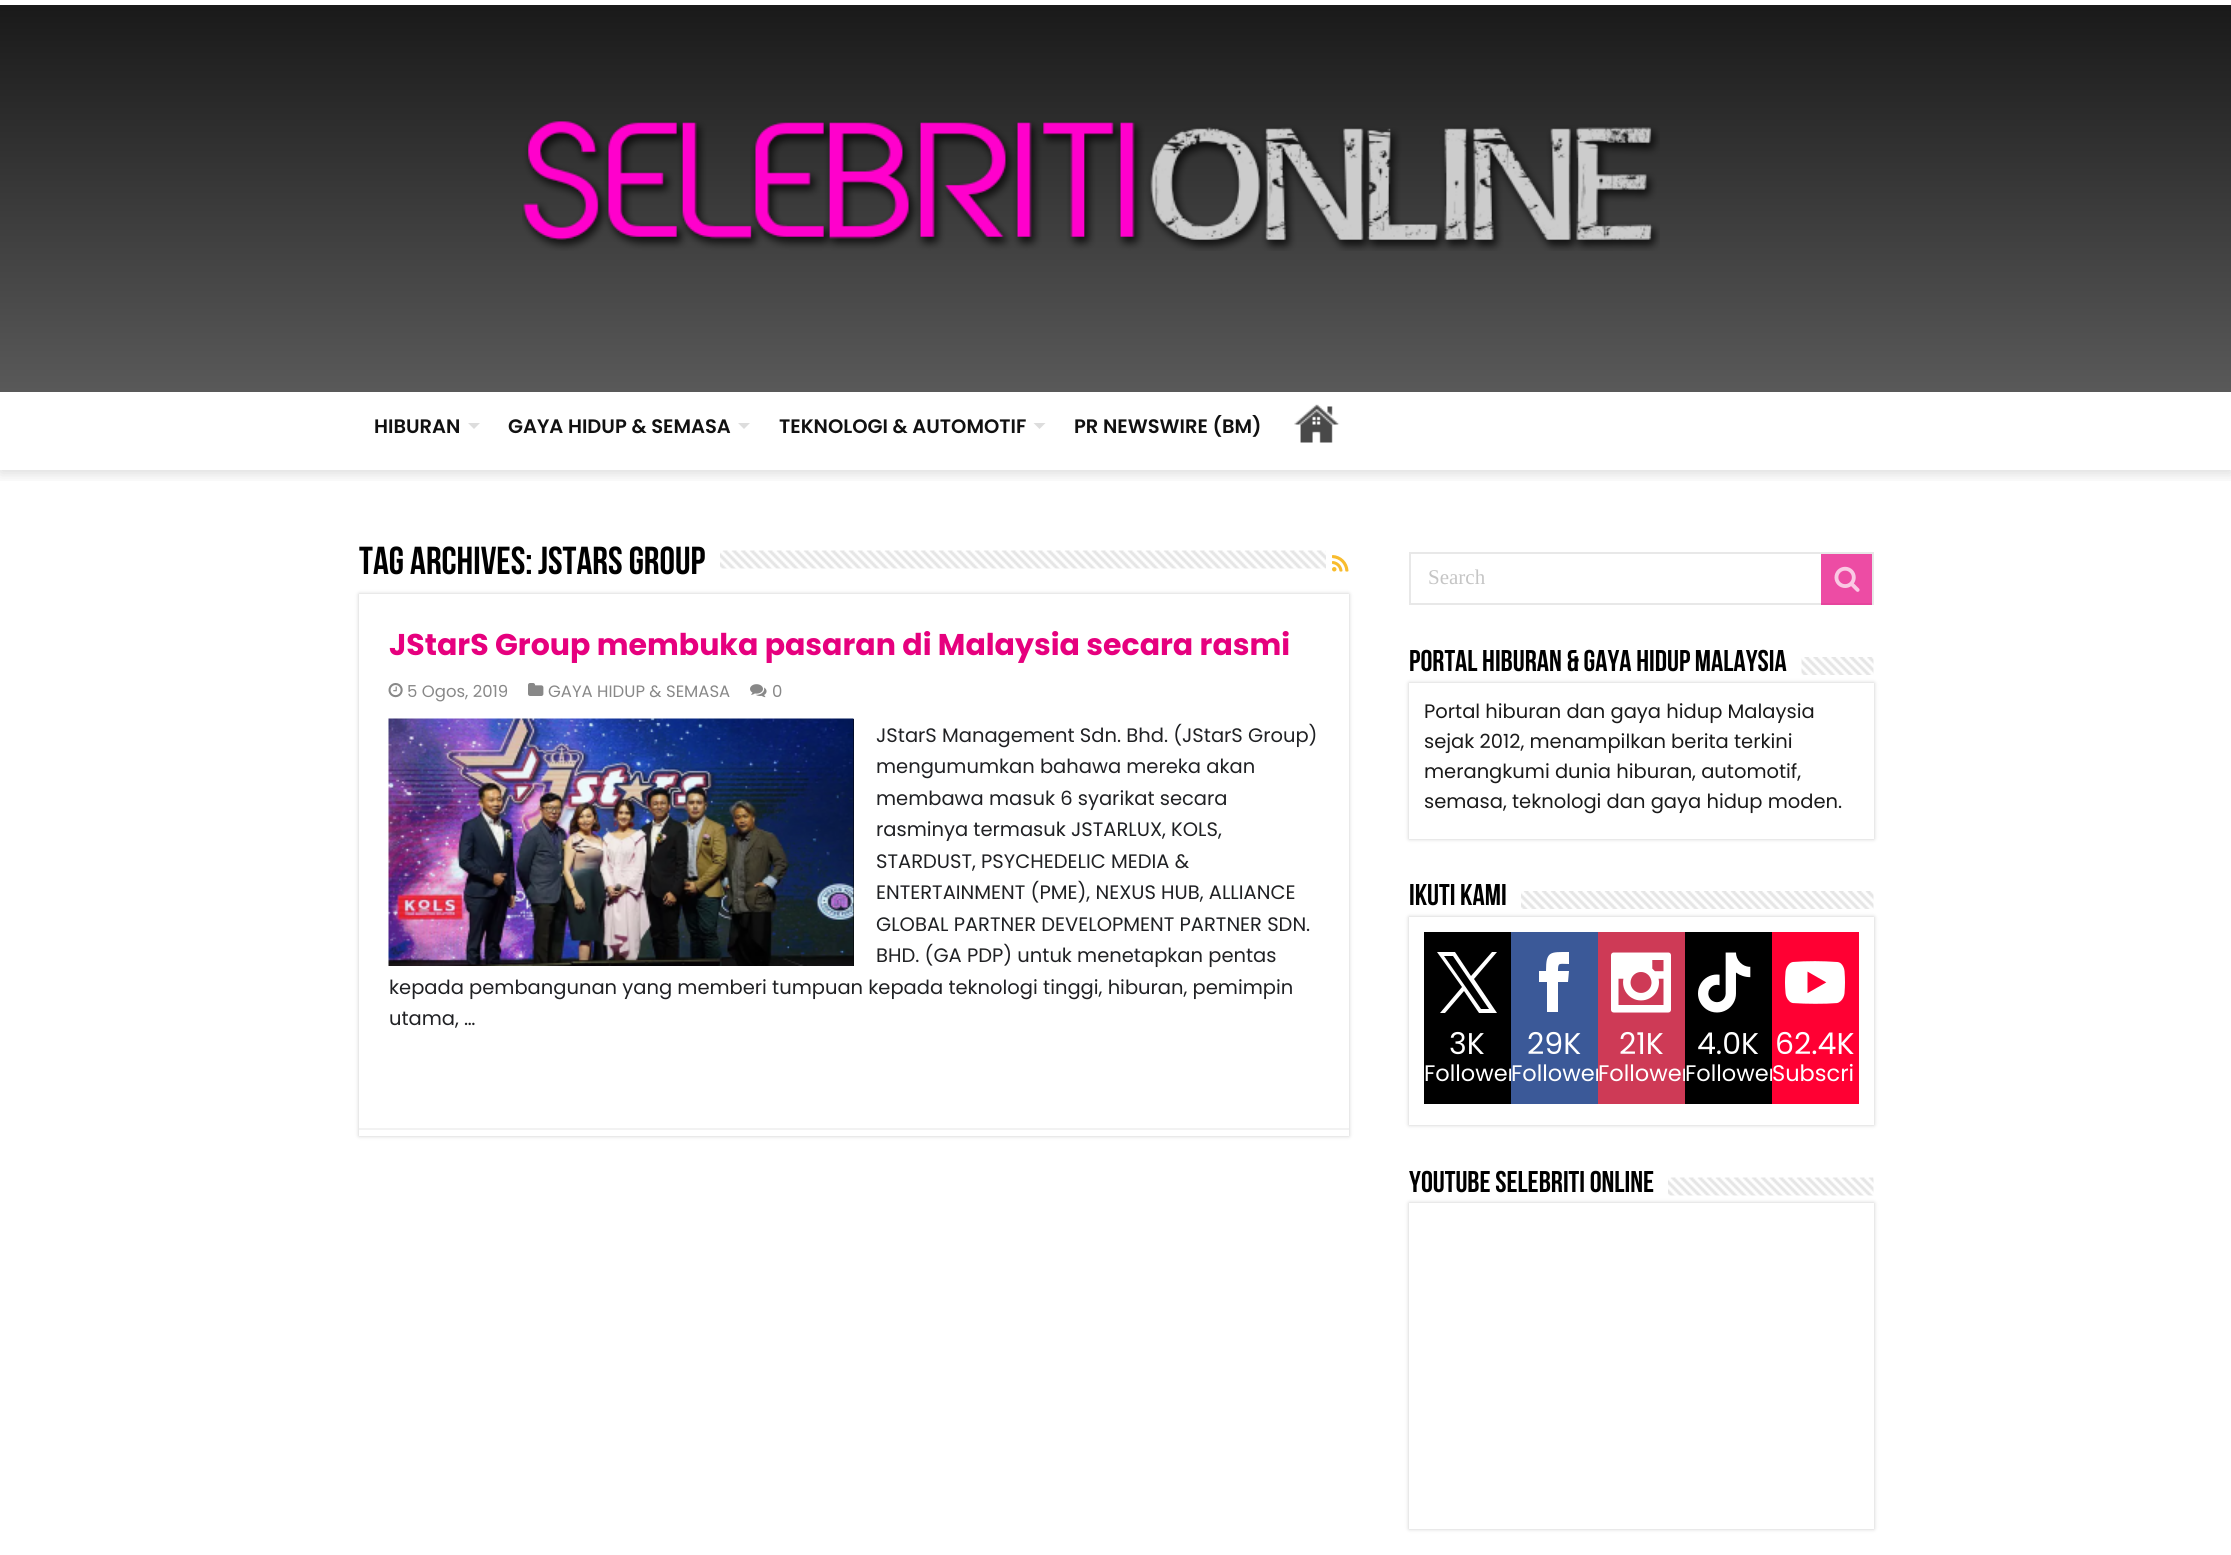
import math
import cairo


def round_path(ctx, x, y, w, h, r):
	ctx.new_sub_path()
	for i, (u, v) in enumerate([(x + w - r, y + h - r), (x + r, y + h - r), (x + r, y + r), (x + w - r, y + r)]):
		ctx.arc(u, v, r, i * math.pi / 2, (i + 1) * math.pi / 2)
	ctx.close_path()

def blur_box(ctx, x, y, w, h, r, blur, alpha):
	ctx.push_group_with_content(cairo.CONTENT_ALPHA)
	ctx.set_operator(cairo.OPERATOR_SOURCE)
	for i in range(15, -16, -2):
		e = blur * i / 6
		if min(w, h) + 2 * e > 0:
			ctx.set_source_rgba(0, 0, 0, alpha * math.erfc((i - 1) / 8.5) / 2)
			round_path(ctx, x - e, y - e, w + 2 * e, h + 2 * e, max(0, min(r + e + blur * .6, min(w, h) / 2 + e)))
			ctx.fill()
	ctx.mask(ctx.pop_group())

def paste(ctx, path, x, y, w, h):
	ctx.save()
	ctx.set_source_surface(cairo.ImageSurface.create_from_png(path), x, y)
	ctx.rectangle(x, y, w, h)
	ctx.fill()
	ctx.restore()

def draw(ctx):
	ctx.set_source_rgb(1, 1, 1)
	ctx.paint()
	ctx.save()
	ctx.rectangle(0, 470, 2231, 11)
	ctx.clip()
	ctx.set_source_rgb(0, 0, 0)
	blur_box(ctx, 0, 3, 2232, 470, 0, 7.5, 0.15)
	ctx.restore()
	gradient = cairo.LinearGradient(1116, 4.5, 1116, 470)
	gradient.add_color_stop_rgba(0, 0, 0, 0, 0.9)
	gradient.add_color_stop_rgba(1, 0, 0, 0, 0.6)
	ctx.set_source(gradient)
	ctx.rectangle(0, 5, 2231, 387)
	ctx.fill()
	paste(ctx, 'media/1.png', 522, 120, 1138, 131)
	ctx.set_source_rgb(1, 1, 1)
	ctx.rectangle(0, 469, 2231, 1)
	ctx.fill()
	ctx.select_font_face('Poppins SemiBold')
	ctx.set_font_size(19.5)
	ctx.set_source_rgb(0.067, 0.067, 0.067)
	ctx.move_to(374, 433)
	ctx.show_text('HIBURAN')
	ctx.set_source_rgb(0.867, 0.867, 0.867)
	ctx.new_path()
	ctx.move_to(468, 423)
	ctx.line_to(480, 423)
	ctx.line_to(474, 429)
	ctx.close_path()
	ctx.fill()
	ctx.set_source_rgb(0.067, 0.067, 0.067)
	ctx.move_to(508, 433)
	ctx.show_text('GAYA HIDUP & SEMASA')
	ctx.set_source_rgb(0.867, 0.867, 0.867)
	ctx.new_path()
	ctx.move_to(738, 423)
	ctx.line_to(750, 423)
	ctx.line_to(744, 429)
	ctx.close_path()
	ctx.fill()
	ctx.set_source_rgb(0.067, 0.067, 0.067)
	ctx.move_to(779, 433)
	ctx.show_text('TEKNOLOGI & AUTOMOTIF')
	ctx.set_source_rgb(0.867, 0.867, 0.867)
	ctx.new_path()
	ctx.move_to(1033.5, 423)
	ctx.line_to(1045.5, 423)
	ctx.line_to(1039.5, 429)
	ctx.close_path()
	ctx.fill()
	ctx.set_source_rgb(0.067, 0.067, 0.067)
	ctx.move_to(1074, 433)
	ctx.show_text('PR NEWSWIRE (BM)')
	paste(ctx, 'media/2.png', 1294, 404, 46, 39)
	ctx.save()
	ctx.rectangle(359, 536, 990, 58)
	ctx.clip()
	ctx.select_font_face('Bebas Neue', cairo.FONT_SLANT_NORMAL, cairo.FONT_WEIGHT_BOLD)
	ctx.set_font_size(39)
	ctx.set_source_rgb(0, 0, 0)
	ctx.move_to(359, 574)
	ctx.show_text('Tag Archives:')
	ctx.restore()
	ctx.select_font_face('Bebas Neue', cairo.FONT_SLANT_NORMAL, cairo.FONT_WEIGHT_BOLD)
	ctx.set_font_size(39)
	ctx.set_source_rgb(0, 0, 0)
	ctx.move_to(538, 574)
	ctx.show_text('JStarS Group')
	paste(ctx, 'media/3.png', 720, 550, 606, 19)
	paste(ctx, 'media/4.png', 1332, 555, 17, 17)
	ctx.set_source_rgb(0.792, 0.792, 0.792)
	blur_box(ctx, 359, 594, 990, 542, 0, 2, 1)
	ctx.set_source_rgb(1, 1, 1)
	ctx.rectangle(359, 594, 990, 542)
	ctx.fill()
	ctx.set_source_rgb(0.949, 0.949, 0.949)
	ctx.rectangle(359, 1128, 990, 2)
	ctx.fill()
	ctx.select_font_face('Poppins', cairo.FONT_SLANT_NORMAL, cairo.FONT_WEIGHT_BOLD)
	ctx.set_font_size(30)
	ctx.set_source_rgb(0.902, 0, 0.494)
	ctx.move_to(389, 655)
	ctx.show_text('JStarS Group membuka pasaran di Malaysia secara rasmi')
	paste(ctx, 'media/5.png', 388, 683, 15, 15)
	ctx.select_font_face('Poppins')
	ctx.set_font_size(16.5)
	ctx.set_source_rgb(0.533, 0.533, 0.533)
	ctx.move_to(407, 697)
	ctx.show_text('5 Ogos, 2019')
	paste(ctx, 'media/6.png', 528, 683, 16, 13)
	ctx.move_to(548, 697)
	ctx.show_text('GAYA HIDUP & SEMASA')
	paste(ctx, 'media/7.png', 750, 684, 17, 14)
	ctx.move_to(772, 697)
	ctx.show_text('0')
	ctx.set_source_rgb(0, 0, 0)
	ctx.rectangle(853, 719, 1, 247)
	ctx.fill()
	paste(ctx, 'media/8.png', 388, 718, 466, 248)
	ctx.set_font_size(19.5)
	ctx.set_source_rgb(0.125, 0.129, 0.141)
	for x, y, s in [
		(876, 742, 'JStarS Management Sdn. Bhd. (JStarS Group)'),
		(876, 773, 'mengumumkan bahawa mereka akan'),
		(876, 805, 'membawa masuk 6 syarikat secara'),
		(876, 836, 'rasminya termasuk JSTARLUX, KOLS,'),
		(876, 868, 'STARDUST, PSYCHEDELIC MEDIA &'),
		(876, 899, 'ENTERTAINMENT (PME), NEXUS HUB, ALLIANCE'),
		(876, 931, 'GLOBAL PARTNER DEVELOPMENT PARTNER SDN.'),
		(876, 962, 'BHD. (GA PDP) untuk menetapkan pentas'),
		(389, 994, 'kepada pembangunan yang memberi tumpuan kepada teknologi tinggi, hiburan, pemimpin'),
		(389, 1025, 'utama, …'),
	]:
		ctx.move_to(x, y)
		ctx.show_text(s)
	ctx.rectangle(1410, 553, 463, 51)
	ctx.set_source_rgb(0.91, 0.91, 0.91)
	ctx.stroke()
	ctx.select_font_face('Liberation Serif')
	ctx.set_font_size(21)
	ctx.set_source_rgb(0.773, 0.773, 0.773)
	ctx.move_to(1428, 584)
	ctx.show_text('Search')
	ctx.set_source_rgba(0.902, 0, 0.494, 0.7)
	ctx.rectangle(1821, 554, 51, 51)
	ctx.fill()
	paste(ctx, 'media/9.png', 1834, 566, 26, 26)
	ctx.select_font_face('Bebas Neue', cairo.FONT_SLANT_NORMAL, cairo.FONT_WEIGHT_BOLD)
	ctx.set_font_size(30)
	ctx.set_source_rgb(0, 0, 0)
	ctx.move_to(1409, 671)
	ctx.show_text('Portal Hiburan & Gaya Hidup Malaysia')
	paste(ctx, 'media/10.png', 1801, 657, 73, 18)
	ctx.set_source_rgb(0.792, 0.792, 0.792)
	blur_box(ctx, 1409, 683, 465, 156, 0, 2, 1)
	ctx.set_source_rgb(1, 1, 1)
	ctx.rectangle(1409, 683, 465, 156)
	ctx.fill()
	ctx.select_font_face('Poppins')
	ctx.set_font_size(19.5)
	ctx.set_source_rgb(0.102, 0.102, 0.102)
	for x, y, s in [
		(1424, 718, 'Portal hiburan dan gaya hidup Malaysia'),
		(1424, 748, 'sejak 2012, menampilkan berita terkini'),
		(1424, 778, 'merangkumi dunia hiburan, automotif,'),
		(1424, 808, 'semasa, teknologi dan gaya hidup moden.'),
	]:
		ctx.move_to(x, y)
		ctx.show_text(s)
	ctx.select_font_face('Bebas Neue', cairo.FONT_SLANT_NORMAL, cairo.FONT_WEIGHT_BOLD)
	ctx.set_font_size(30)
	ctx.set_source_rgb(0, 0, 0)
	ctx.move_to(1409, 905)
	ctx.show_text('Ikuti kami')
	paste(ctx, 'media/11.png', 1521, 891, 353, 18)
	ctx.set_source_rgb(0.792, 0.792, 0.792)
	blur_box(ctx, 1409, 917, 465, 208, 0, 2, 1)
	ctx.set_source_rgb(1, 1, 1)
	ctx.rectangle(1409, 917, 465, 208)
	ctx.fill()
	ctx.set_source_rgb(0, 0, 0)
	ctx.rectangle(1424, 932, 87, 172)
	ctx.fill()
	ctx.set_source_rgb(1, 1, 1)
	ctx.new_path()
	ctx.move_to(1497, 1013)
	ctx.line_to(1474, 979)
	ctx.line_to(1497, 952)
	ctx.line_to(1492, 952)
	ctx.line_to(1471, 976)
	ctx.line_to(1455, 952)
	ctx.line_to(1437, 952)
	ctx.line_to(1462, 987)
	ctx.line_to(1440, 1013)
	ctx.line_to(1445, 1013)
	ctx.line_to(1464, 991)
	ctx.line_to(1479, 1013)
	ctx.close_path()
	ctx.move_to(1489, 1009)
	ctx.line_to(1481, 1009)
	ctx.line_to(1444, 956)
	ctx.line_to(1453, 956)
	ctx.close_path()
	ctx.fill()
	ctx.select_font_face('Poppins')
	ctx.move_to(1449, 1054)
	ctx.show_text('3K')
	ctx.set_font_size(22.5)
	ctx.move_to(1424, 1081)
	ctx.show_text('Follower')
	ctx.set_source_rgb(0.231, 0.349, 0.596)
	ctx.rectangle(1511, 932, 87, 172)
	ctx.fill()
	ctx.set_source_rgb(1, 1, 1)
	ctx.new_path()
	ctx.move_to(1558, 1012)
	ctx.line_to(1547, 1012)
	ctx.line_to(1547, 982)
	ctx.line_to(1539, 982)
	ctx.line_to(1539, 971)
	ctx.line_to(1546, 971)
	ctx.curve_to(1546, 951, 1550, 952, 1569, 952)
	ctx.line_to(1569, 964)
	ctx.curve_to(1559, 964, 1558, 962, 1558, 971)
	ctx.line_to(1569, 971)
	ctx.line_to(1568, 982)
	ctx.line_to(1558, 982)
	ctx.close_path()
	ctx.fill()
	ctx.set_font_size(30)
	ctx.move_to(1527, 1054)
	ctx.show_text('29K')
	ctx.set_font_size(22.5)
	ctx.move_to(1511, 1081)
	ctx.show_text('Follower')
	ctx.set_source_rgb(0.808, 0.227, 0.337)
	ctx.rectangle(1598, 932, 87, 172)
	ctx.fill()
	paste(ctx, 'media/12.png', 1611, 952, 60, 61)
	ctx.set_font_size(30)
	ctx.set_source_rgb(1, 1, 1)
	ctx.move_to(1619, 1054)
	ctx.show_text('21K')
	ctx.set_font_size(22.5)
	ctx.move_to(1598, 1081)
	ctx.show_text('Follower')
	ctx.set_source_rgb(0, 0, 0)
	ctx.rectangle(1685, 932, 87, 172)
	ctx.fill()
	paste(ctx, 'media/13.png', 1698, 952, 53, 61)
	ctx.set_font_size(30)
	ctx.set_source_rgb(1, 1, 1)
	ctx.move_to(1697, 1054)
	ctx.show_text('4.0K')
	ctx.set_font_size(22.5)
	ctx.move_to(1685, 1081)
	ctx.show_text('Follower')
	ctx.set_source_rgb(1, 0, 0.2)
	ctx.rectangle(1772, 932, 87, 172)
	ctx.fill()
	paste(ctx, 'media/14.png', 1785, 961, 60, 43)
	ctx.set_font_size(30)
	ctx.set_source_rgb(1, 1, 1)
	ctx.move_to(1775, 1054)
	ctx.show_text('62.4K')
	ctx.set_font_size(22.5)
	ctx.move_to(1772, 1081)
	ctx.show_text('Subscri')
	ctx.select_font_face('Bebas Neue', cairo.FONT_SLANT_NORMAL, cairo.FONT_WEIGHT_BOLD)
	ctx.set_font_size(30)
	ctx.set_source_rgb(0, 0, 0)
	ctx.move_to(1409, 1192)
	ctx.show_text('YouTube selebriti online')
	paste(ctx, 'media/15.png', 1668, 1177, 206, 19)
	ctx.set_source_rgb(0.792, 0.792, 0.792)
	blur_box(ctx, 1409, 1203, 465, 326, 0, 2, 1)
	ctx.set_source_rgb(1, 1, 1)
	ctx.rectangle(1409, 1203, 465, 326)
	ctx.fill()


surface = cairo.ImageSurface(cairo.FORMAT_RGB24, 2231, 1555)
ctx = cairo.Context(surface)
options = cairo.FontOptions()
options.set_hint_metrics(cairo.HINT_METRICS_OFF)
options.set_hint_style(cairo.HINT_STYLE_NONE)
ctx.set_font_options(options)
ctx.set_miter_limit(4)
draw(ctx)
surface.write_to_png('image.png')
